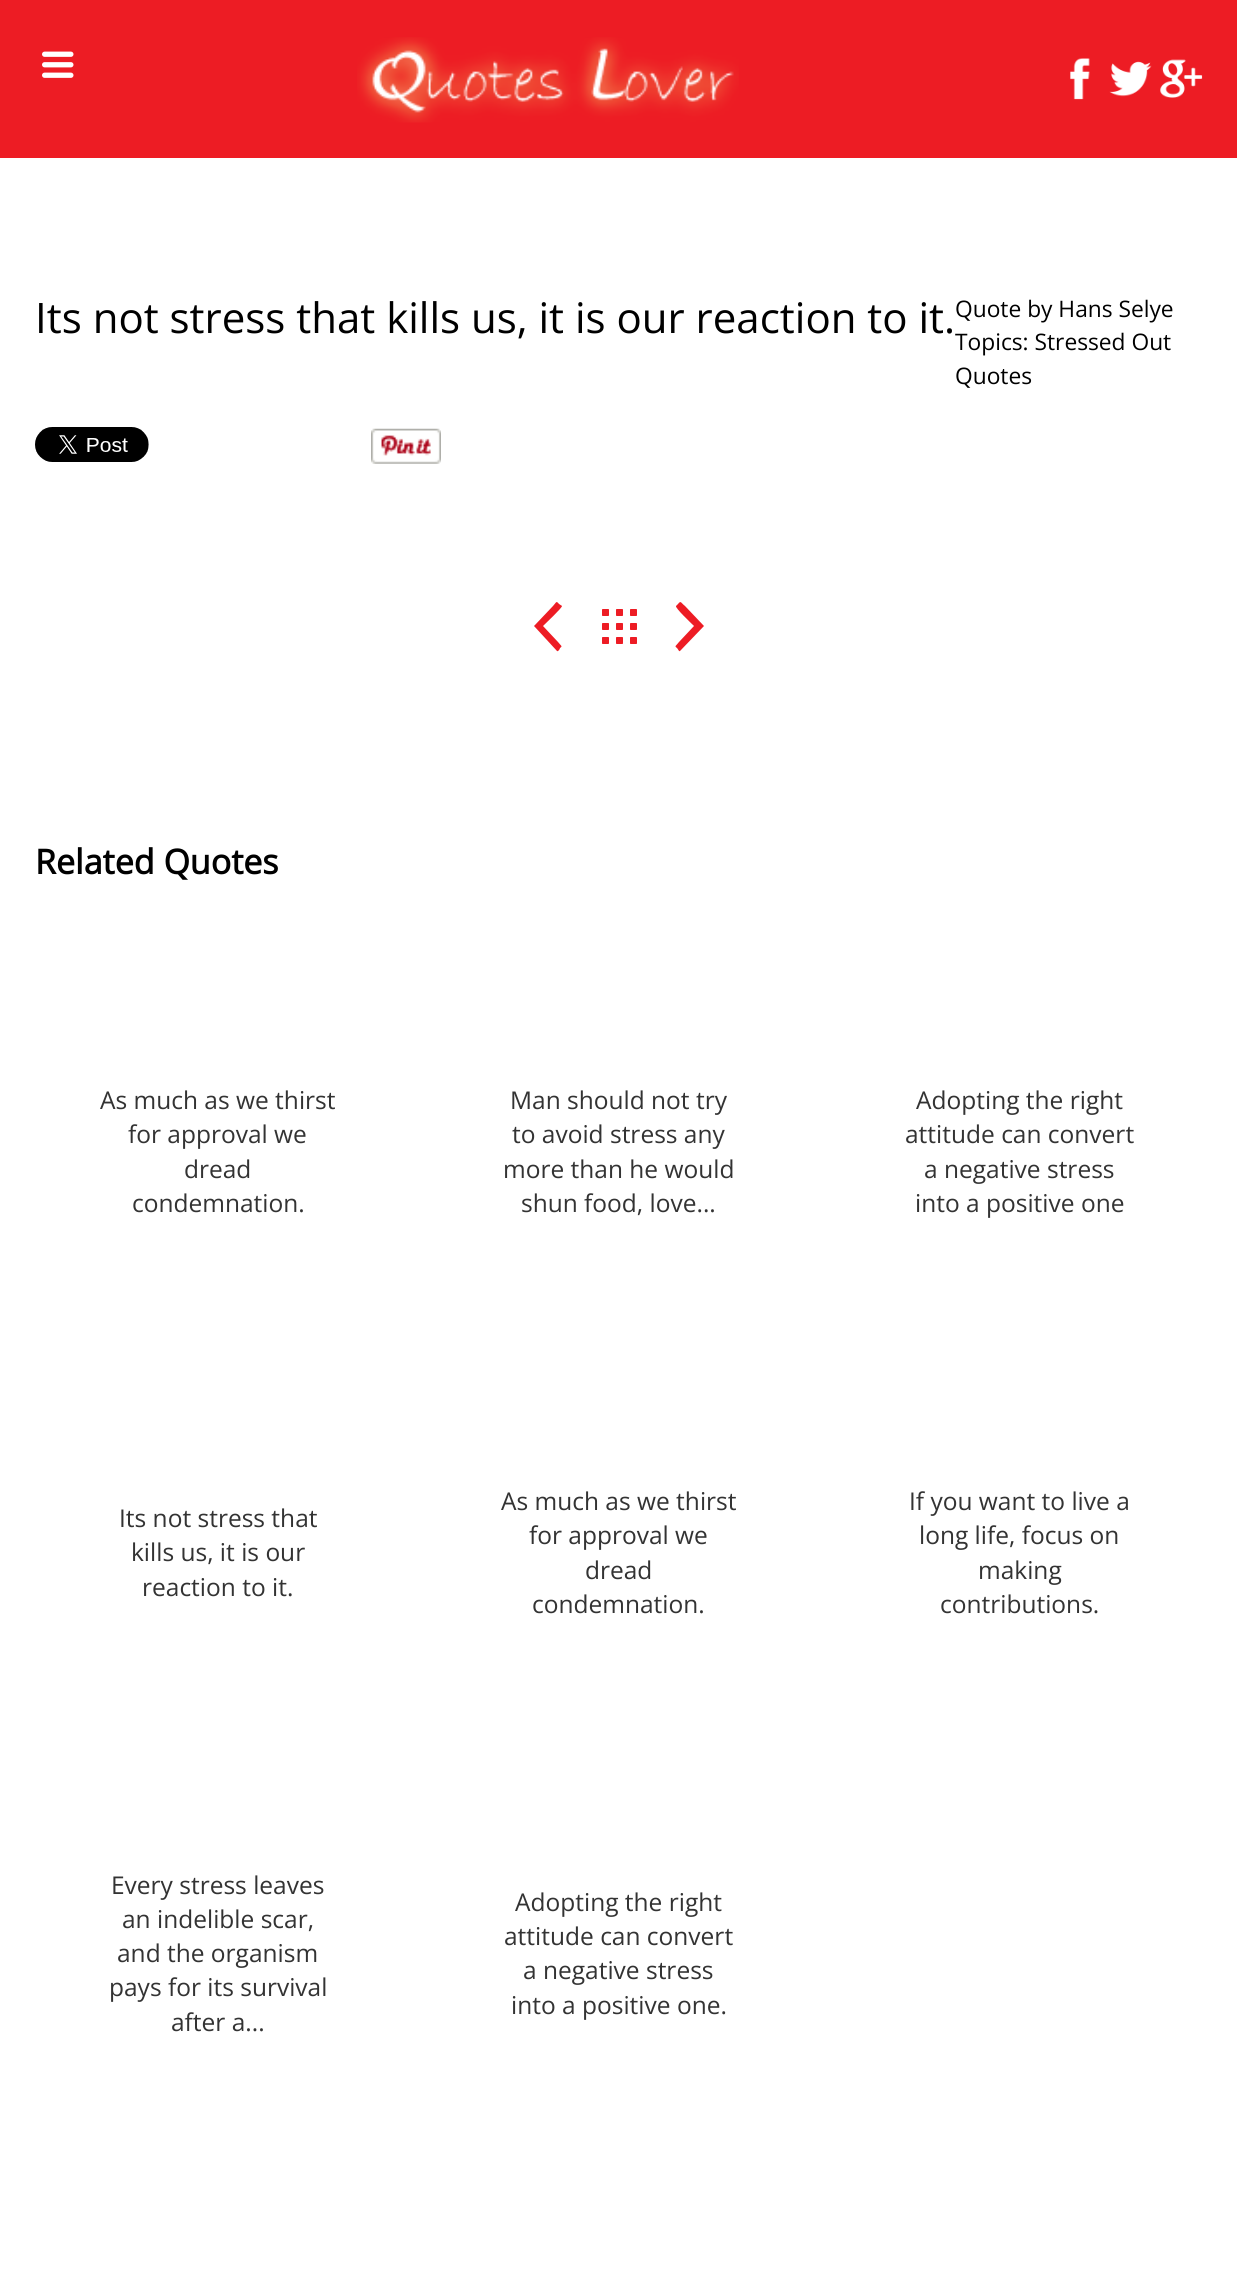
import math
import cairo


def paste(ctx, path, x, y, w, h):
	ctx.save()
	ctx.set_source_surface(cairo.ImageSurface.create_from_png(path), x, y)
	ctx.rectangle(x, y, w, h)
	ctx.fill()
	ctx.restore()

def draw(ctx):
	ctx.set_source_rgb(1, 1, 1)
	ctx.paint()
	ctx.set_source_rgb(0.929, 0.11, 0.141)
	ctx.rectangle(0, 0, 1237, 158)
	ctx.fill()
	paste(ctx, 'media/1.png', 42, 51, 32, 27)
	paste(ctx, 'media/2.png', 357, 37, 382, 86)
	paste(ctx, 'media/3.png', 1070, 58, 20, 42)
	paste(ctx, 'media/4.png', 1109, 61, 43, 36)
	paste(ctx, 'media/5.png', 1160, 59, 43, 39)
	ctx.select_font_face('Open Sans')
	ctx.set_font_size(42)
	ctx.set_source_rgb(0, 0, 0)
	ctx.move_to(35, 333)
	ctx.show_text('Its not stress that kills us, it is our reaction to it.')
	ctx.set_font_size(22.75)
	for x, y, s in [
		(955, 317, 'Quote by Hans Selye'),
		(955, 350, 'Topics: Stressed Out'),
		(955, 384, 'Quotes'),
	]:
		ctx.move_to(x, y)
		ctx.show_text(s)
	paste(ctx, 'media/6.png', 35, 427, 114, 35)
	paste(ctx, 'media/7.png', 371, 428, 70, 36)
	ctx.set_source_rgb(0.929, 0.11, 0.141)
	ctx.new_path()
	ctx.move_to(543, 626)
	ctx.line_to(558, 642)
	ctx.curve_to(561, 646, 563, 646, 560, 648)
	ctx.curve_to(560, 649, 558, 652, 557, 651)
	ctx.line_to(534, 626)
	ctx.line_to(553, 606)
	ctx.curve_to(556, 603, 556, 600, 559, 604)
	ctx.line_to(562, 606)
	ctx.curve_to(562, 608, 546, 623, 543, 626)
	ctx.close_path()
	ctx.fill()
	paste(ctx, 'media/8.png', 602, 609, 35, 35)
	ctx.new_path()
	ctx.move_to(694, 626)
	ctx.curve_to(691, 623, 675, 608, 676, 606)
	ctx.line_to(678, 604)
	ctx.curve_to(681, 600, 681, 603, 685, 606)
	ctx.line_to(704, 626)
	ctx.line_to(680, 651)
	ctx.curve_to(679, 652, 678, 649, 677, 648)
	ctx.curve_to(674, 646, 676, 646, 679, 642)
	ctx.close_path()
	ctx.fill()
	ctx.select_font_face('Open Sans', cairo.FONT_SLANT_NORMAL, cairo.FONT_WEIGHT_BOLD)
	ctx.set_font_size(34)
	ctx.set_source_rgb(0, 0, 0)
	ctx.move_to(35, 874)
	ctx.show_text('Related Quotes')
	ctx.select_font_face('Open Sans')
	ctx.set_font_size(24.5)
	ctx.set_source_rgb(0.2, 0.2, 0.2)
	for x, y, s in [
		(100, 1109, 'As much as we thirst'),
		(128, 1143, 'for approval we'),
		(184, 1178, 'dread'),
		(132, 1212, 'condemnation.'),
		(510, 1109, 'Man should not try'),
		(512, 1143, 'to avoid stress any'),
		(503, 1178, 'more than he would'),
		(521, 1212, 'shun food, love...'),
		(916, 1109, 'Adopting the right'),
		(905, 1143, 'attitude can convert'),
		(924, 1178, 'a negative stress'),
		(915, 1212, 'into a positive one'),
		(119, 1527, 'Its not stress that'),
		(131, 1561, 'kills us, it is our'),
		(142, 1596, 'reaction to it.'),
		(501, 1510, 'As much as we thirst'),
		(529, 1544, 'for approval we'),
		(585, 1579, 'dread'),
		(532, 1613, 'condemnation.'),
		(909, 1510, 'If you want to live a'),
		(919, 1544, 'long life, focus on'),
		(978, 1579, 'making'),
		(940, 1613, 'contributions.'),
		(111, 1894, 'Every stress leaves'),
		(122, 1928, 'an indelible scar,'),
		(117, 1962, 'and the organism'),
		(109, 1996, 'pays for its survival'),
		(171, 2031, 'after a...'),
		(515, 1911, 'Adopting the right'),
		(504, 1945, 'attitude can convert'),
		(523, 1979, 'a negative stress'),
		(511, 2014, 'into a positive one.'),
	]:
		ctx.move_to(x, y)
		ctx.show_text(s)


surface = cairo.ImageSurface(cairo.FORMAT_RGB24, 1237, 2271)
ctx = cairo.Context(surface)
options = cairo.FontOptions()
options.set_hint_metrics(cairo.HINT_METRICS_OFF)
options.set_hint_style(cairo.HINT_STYLE_NONE)
ctx.set_font_options(options)
ctx.set_miter_limit(4)
draw(ctx)
surface.write_to_png('image.png')
